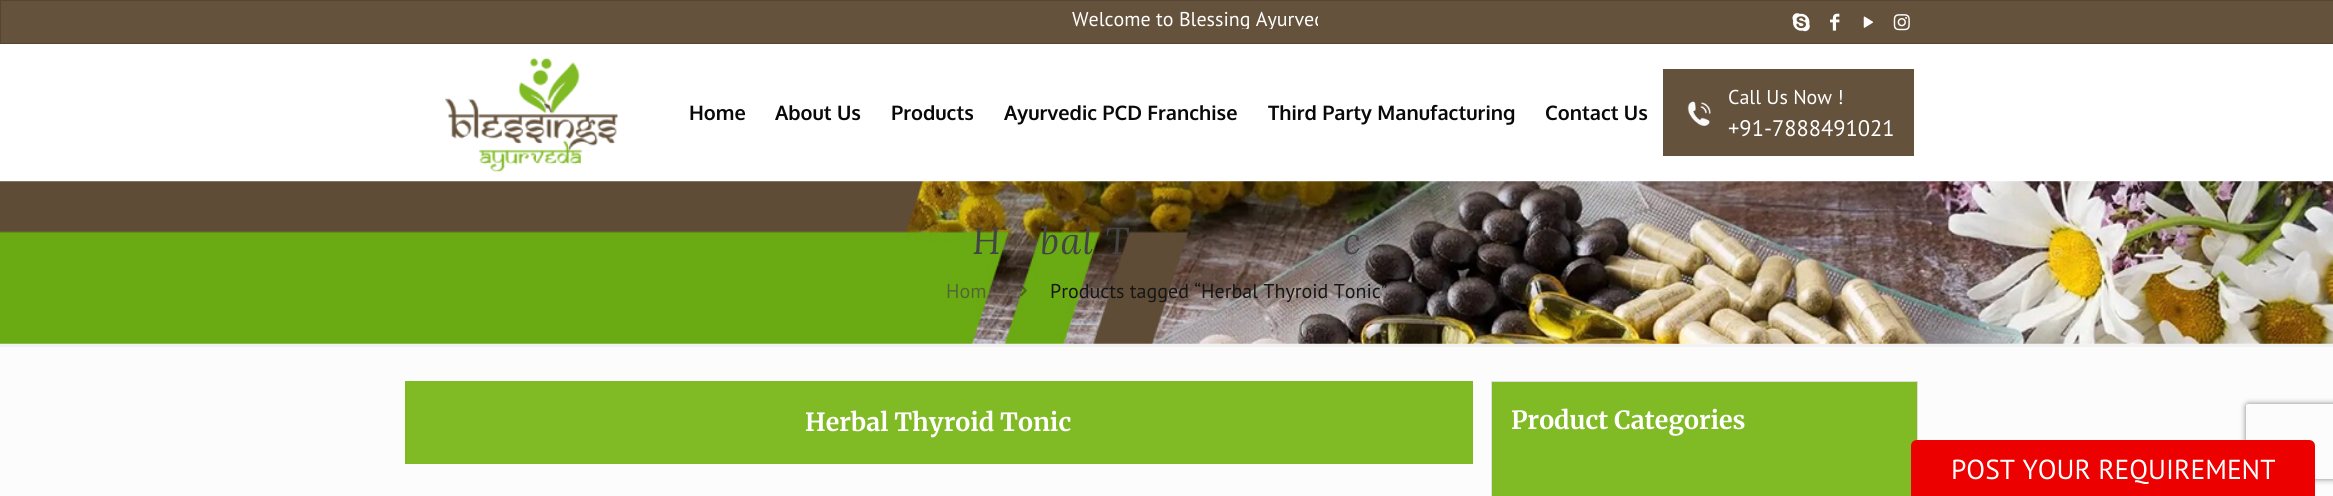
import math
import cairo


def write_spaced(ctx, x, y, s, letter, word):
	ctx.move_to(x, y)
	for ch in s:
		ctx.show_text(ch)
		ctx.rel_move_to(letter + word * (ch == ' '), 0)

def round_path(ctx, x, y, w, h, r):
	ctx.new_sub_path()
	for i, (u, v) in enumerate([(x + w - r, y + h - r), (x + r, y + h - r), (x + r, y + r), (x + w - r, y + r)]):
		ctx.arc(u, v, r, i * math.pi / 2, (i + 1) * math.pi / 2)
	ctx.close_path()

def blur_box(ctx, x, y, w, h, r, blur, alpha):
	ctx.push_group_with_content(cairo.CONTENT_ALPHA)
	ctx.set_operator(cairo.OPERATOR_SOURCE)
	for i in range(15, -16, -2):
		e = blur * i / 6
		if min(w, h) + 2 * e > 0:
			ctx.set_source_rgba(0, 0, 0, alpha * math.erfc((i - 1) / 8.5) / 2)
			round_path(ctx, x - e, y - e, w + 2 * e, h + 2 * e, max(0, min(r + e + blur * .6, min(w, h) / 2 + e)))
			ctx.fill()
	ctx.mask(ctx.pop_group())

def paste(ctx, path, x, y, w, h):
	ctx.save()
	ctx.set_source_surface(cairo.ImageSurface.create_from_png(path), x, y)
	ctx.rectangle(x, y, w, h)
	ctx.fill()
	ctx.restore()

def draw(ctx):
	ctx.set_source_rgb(0.988, 0.988, 0.988)
	ctx.paint()
	ctx.set_source_rgb(0.396, 0.322, 0.235)
	ctx.rectangle(0.5, 0.5, 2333, 43)
	ctx.fill_preserve()
	ctx.set_source_rgb(0.333, 0.271, 0.196)
	ctx.set_line_width(1)
	ctx.stroke()
	ctx.save()
	ctx.rectangle(421, 9, 897, 20)
	ctx.clip()
	ctx.select_font_face('PT Sans')
	ctx.set_font_size(20)
	ctx.set_source_rgb(1, 1, 1)
	ctx.move_to(1072, 26)
	ctx.show_text('Welcome to Blessing Ayurved')
	ctx.restore()
	paste(ctx, 'media/1.png', 1792, 13, 18, 19)
	paste(ctx, 'media/2.png', 1830, 13, 10, 18)
	paste(ctx, 'media/3.png', 1863, 16, 11, 12)
	paste(ctx, 'media/4.png', 1893, 14, 17, 17)
	ctx.set_source_rgb(1, 1, 1)
	ctx.rectangle(0, 44, 2333, 137)
	ctx.fill()
	paste(ctx, 'media/5.png', 445, 58, 173, 114)
	ctx.select_font_face('Oxygen', cairo.FONT_SLANT_NORMAL, cairo.FONT_WEIGHT_BOLD)
	ctx.set_font_size(20)
	ctx.set_source_rgb(0.039, 0.039, 0.039)
	for x, y, s in [
		(689, 120, 'Home'),
		(775, 120, 'About Us'),
		(891, 120, 'Products'),
		(1004, 120, 'Ayurvedic PCD Franchise'),
		(1268, 120, 'Third Party Manufacturing'),
		(1545, 120, 'Contact Us'),
	]:
		ctx.move_to(x, y)
		ctx.show_text(s)
	ctx.set_source_rgb(0.396, 0.322, 0.235)
	ctx.rectangle(1663, 69, 251, 87)
	ctx.fill()
	paste(ctx, 'media/6.png', 1687, 101, 24, 25)
	ctx.select_font_face('PT Sans')
	ctx.set_source_rgb(1, 1, 1)
	ctx.move_to(1728, 104)
	ctx.show_text('Call Us Now !')
	ctx.set_font_size(22.5)
	ctx.move_to(1728, 136)
	ctx.show_text('+91-7888491021')
	paste(ctx, 'media/7.png', 0, 181, 2333, 163)
	ctx.select_font_face('Lora', cairo.FONT_SLANT_ITALIC)
	ctx.set_font_size(37.5)
	ctx.set_source_rgb(0.267, 0.267, 0.267)
	for x, y, s in [
		(972, 254, 'H'),
		(1040, 254, 'bal T'),
		(1343, 254, 'c'),
	]:
		write_spaced(ctx, x, y, s, 1.25, 0)
	ctx.select_font_face('PT Sans')
	ctx.set_font_size(20)
	ctx.set_source_rgb(0.322, 0.4, 0.204)
	ctx.move_to(946, 298)
	ctx.show_text('Hom')
	paste(ctx, 'media/8.png', 1020, 284, 7, 13)
	ctx.set_source_rgb(0.086, 0.086, 0.086)
	ctx.move_to(1050, 298)
	ctx.show_text('Products tagged “Herbal Thyroid Tonic”')
	ctx.set_source_rgb(0.949, 0.949, 0.949)
	ctx.rectangle(0, 344, 2333, 3)
	ctx.fill()
	ctx.set_source_rgb(0.502, 0.729, 0.141)
	ctx.rectangle(405, 381, 1068, 83)
	ctx.fill()
	ctx.select_font_face('Merriweather', cairo.FONT_SLANT_NORMAL, cairo.FONT_WEIGHT_BOLD)
	ctx.set_font_size(25)
	ctx.set_source_rgb(1, 1, 1)
	ctx.move_to(805, 431)
	ctx.show_text('Herbal Thyroid Tonic')
	ctx.set_source_rgb(0.502, 0.729, 0.141)
	ctx.rectangle(1491.5, 381.5, 426, 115)
	ctx.fill_preserve()
	ctx.set_source_rgb(0.871, 0.871, 0.871)
	ctx.stroke()
	ctx.set_source_rgb(1, 1, 1)
	ctx.move_to(1511, 429)
	ctx.show_text('Product Categories')
	ctx.save()
	ctx.set_fill_rule(cairo.FILL_RULE_EVEN_ODD)
	ctx.new_path()
	ctx.move_to(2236, 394)
	ctx.line_to(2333, 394)
	ctx.line_to(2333, 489)
	ctx.line_to(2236, 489)
	ctx.close_path()
	ctx.move_to(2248.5, 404)
	ctx.line_to(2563.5, 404)
	ctx.curve_to(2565, 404, 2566, 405, 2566, 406.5)
	ctx.line_to(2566, 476.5)
	ctx.curve_to(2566, 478, 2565, 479, 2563.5, 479)
	ctx.line_to(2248.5, 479)
	ctx.curve_to(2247, 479, 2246, 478, 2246, 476.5)
	ctx.line_to(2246, 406.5)
	ctx.curve_to(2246, 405, 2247, 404, 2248.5, 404)
	ctx.close_path()
	ctx.clip()
	ctx.set_source_rgb(0.502, 0.502, 0.502)
	blur_box(ctx, 2246, 404, 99, 75, 2.5, 3, 1)
	ctx.restore()
	ctx.set_source_rgb(0.922, 0, 0)
	ctx.new_path()
	ctx.move_to(1917, 440)
	ctx.line_to(2309, 440)
	ctx.curve_to(2312.5, 440, 2315, 442.5, 2315, 446)
	ctx.line_to(2315, 496)
	ctx.line_to(1911, 496)
	ctx.line_to(1911, 446)
	ctx.curve_to(1911, 442.5, 1913.5, 440, 1917, 440)
	ctx.close_path()
	ctx.fill()
	ctx.select_font_face('PT Sans')
	ctx.set_font_size(27.5)
	ctx.set_source_rgb(1, 1, 1)
	ctx.move_to(1951, 479)
	ctx.show_text('POST YOUR REQUIREMENT')


surface = cairo.ImageSurface(cairo.FORMAT_RGB24, 2333, 496)
ctx = cairo.Context(surface)
options = cairo.FontOptions()
options.set_hint_metrics(cairo.HINT_METRICS_OFF)
options.set_hint_style(cairo.HINT_STYLE_NONE)
ctx.set_font_options(options)
ctx.set_miter_limit(4)
draw(ctx)
surface.write_to_png('image.png')
